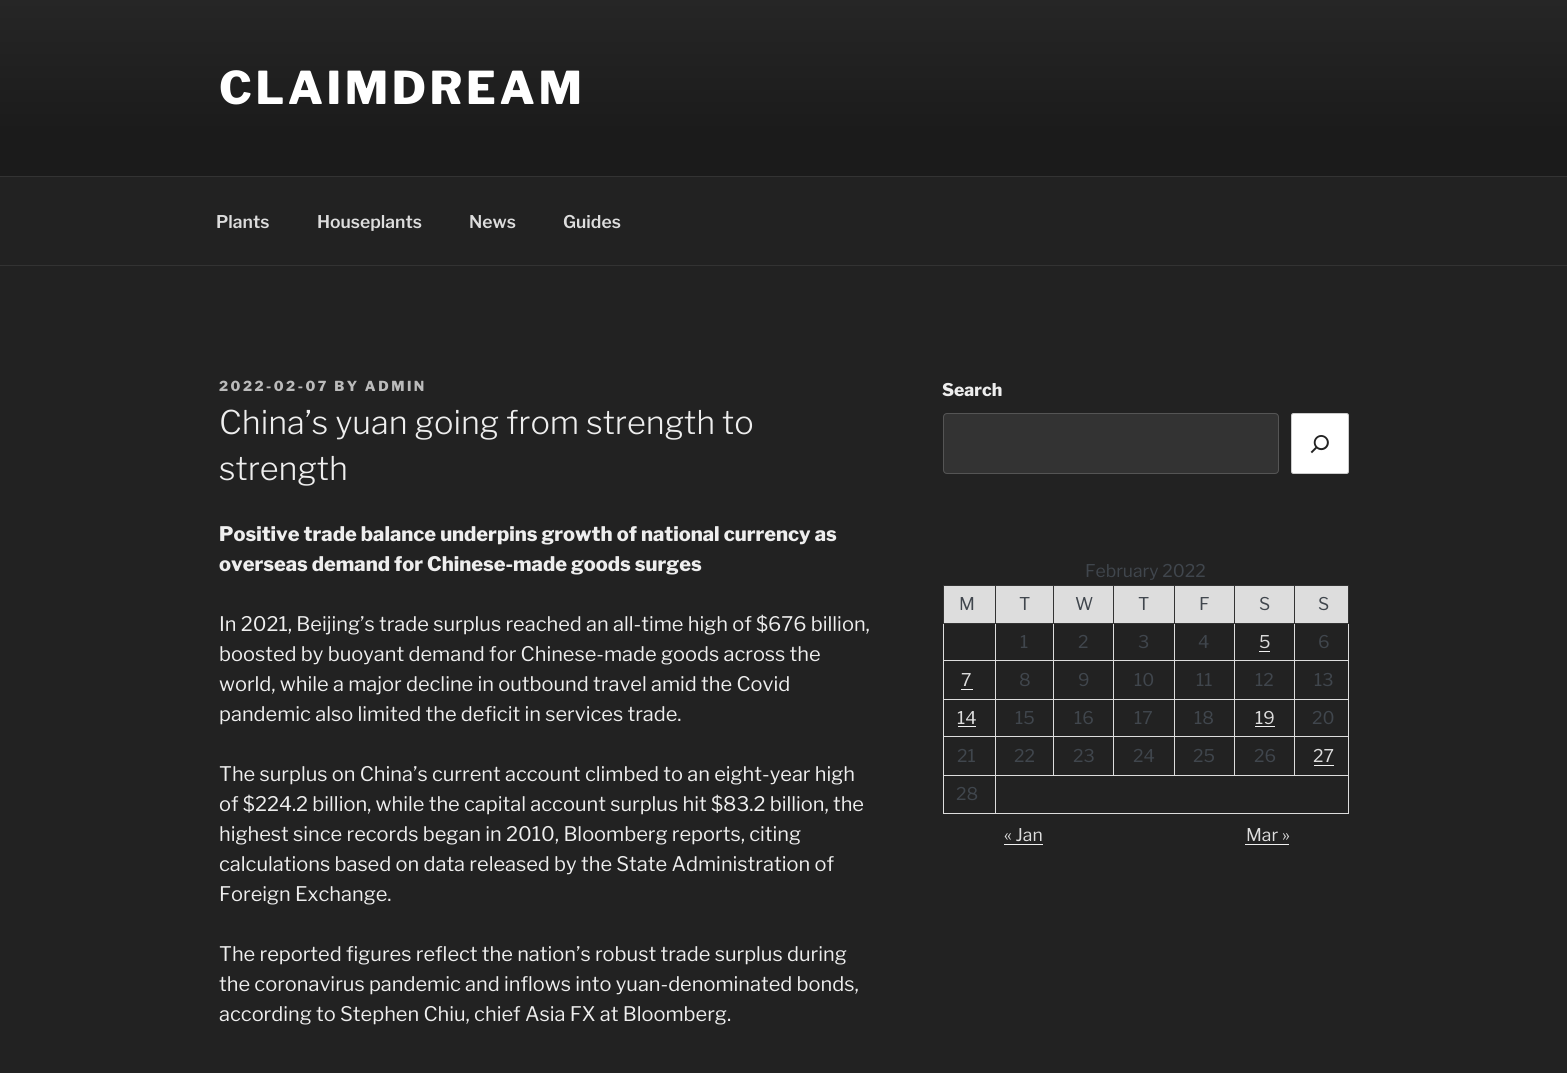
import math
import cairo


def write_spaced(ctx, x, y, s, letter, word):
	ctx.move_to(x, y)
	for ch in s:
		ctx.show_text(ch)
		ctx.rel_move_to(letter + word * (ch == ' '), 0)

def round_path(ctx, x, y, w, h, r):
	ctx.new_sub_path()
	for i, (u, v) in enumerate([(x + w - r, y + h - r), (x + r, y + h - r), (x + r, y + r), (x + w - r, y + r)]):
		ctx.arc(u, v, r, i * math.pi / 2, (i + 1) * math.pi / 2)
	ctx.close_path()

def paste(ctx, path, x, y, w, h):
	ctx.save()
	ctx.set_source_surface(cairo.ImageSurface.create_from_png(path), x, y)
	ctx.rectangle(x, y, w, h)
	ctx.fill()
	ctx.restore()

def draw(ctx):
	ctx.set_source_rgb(0.133, 0.133, 0.133)
	ctx.paint()
	gradient = cairo.LinearGradient(784, 0, 784, 176)
	gradient.add_color_stop_rgba(0, 0.149, 0.149, 0.149, 1)
	gradient.add_color_stop_rgba(0.75, 0.106, 0.106, 0.106, 1)
	gradient.add_color_stop_rgba(1, 0.106, 0.106, 0.106, 1)
	ctx.set_source(gradient)
	ctx.rectangle(0, 0, 1567, 176)
	ctx.fill()
	ctx.select_font_face('Libre Franklin Thin')
	ctx.set_font_size(45)
	ctx.set_source_rgb(1, 1, 1)
	write_spaced(ctx, 219, 104, 'CLAIMDREAM', 3.6, 0)
	ctx.set_source_rgb(0.2, 0.2, 0.2)
	ctx.rectangle(0, 176, 1567, 1)
	ctx.fill()
	ctx.rectangle(0, 265, 1567, 1)
	ctx.fill()
	ctx.select_font_face('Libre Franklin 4 Thin')
	ctx.set_font_size(17.5)
	ctx.set_source_rgb(0.867, 0.867, 0.867)
	for x, y, s in [
		(216, 228, 'Plants'),
		(317, 228, 'Houseplants'),
		(469, 228, 'News'),
		(563, 228, 'Guides'),
	]:
		ctx.move_to(x, y)
		ctx.show_text(s)
	ctx.select_font_face('Libre Franklin Thin')
	ctx.set_font_size(13.75)
	ctx.set_source_rgb(0.733, 0.733, 0.733)
	write_spaced(ctx, 219, 391, '2022-02-07 BY ADMIN', 2.5, 0)
	ctx.select_font_face('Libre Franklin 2 Thin')
	ctx.set_font_size(32.5)
	ctx.set_source_rgb(0.933, 0.933, 0.933)
	ctx.move_to(219, 434)
	ctx.show_text('China’s yuan going from strength to')
	ctx.move_to(219, 480)
	ctx.show_text('strength')
	ctx.select_font_face('Libre Franklin Thin')
	ctx.set_font_size(20)
	ctx.move_to(219, 541)
	ctx.show_text('Positive trade balance underpins growth of national currency as')
	ctx.move_to(219, 571)
	ctx.show_text('overseas demand for Chinese-made goods surges')
	ctx.select_font_face('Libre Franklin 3 Thin')
	for x, y, s in [
		(219, 631, 'In 2021, Beijing’s trade surplus reached an all-time high of $676 billion,'),
		(219, 661, 'boosted by buoyant demand for Chinese-made goods across the'),
		(219, 691, 'world, while a major decline in outbound travel amid the Covid'),
		(219, 721, 'pandemic also limited the deficit in services trade.'),
		(219, 781, 'The surplus on China’s current account climbed to an eight-year high'),
		(219, 811, 'of $224.2 billion, while the capital account surplus hit $83.2 billion, the'),
		(219, 841, 'highest since records began in 2010, Bloomberg reports, citing'),
		(219, 871, 'calculations based on data released by the State Administration of'),
		(219, 901, 'Foreign Exchange.'),
		(219, 961, 'The reported figures reflect the nation’s robust trade surplus during'),
		(219, 991, 'the coronavirus pandemic and inflows into yuan-denominated bonds,'),
		(219, 1021, 'according to Stephen Chiu, chief Asia FX at Bloomberg.'),
	]:
		ctx.move_to(x, y)
		ctx.show_text(s)
	ctx.select_font_face('Libre Franklin Thin')
	ctx.set_font_size(17.5)
	ctx.move_to(942, 396)
	ctx.show_text('Search')
	ctx.set_source_rgb(0.2, 0.2, 0.2)
	round_path(ctx, 943.5, 413.5, 335, 60, 3.5)
	ctx.fill_preserve()
	ctx.set_source_rgb(0.333, 0.333, 0.333)
	ctx.set_line_width(1)
	ctx.stroke()
	ctx.set_source_rgb(1, 1, 1)
	round_path(ctx, 1291.5, 413.5, 57, 60, 2)
	ctx.fill_preserve()
	ctx.set_source_rgb(0.8, 0.8, 0.8)
	ctx.stroke()
	paste(ctx, 'media/1.png', 1310, 435, 19, 19)
	ctx.select_font_face('Libre Franklin 3 Thin')
	ctx.set_source_rgb(0.251, 0.275, 0.302)
	ctx.move_to(1085, 577)
	ctx.show_text('February 2022')
	ctx.set_source_rgb(0.867, 0.867, 0.867)
	ctx.rectangle(944, 586, 51, 37)
	ctx.fill()
	ctx.set_source_rgb(0.2, 0.2, 0.2)
	ctx.rectangle(1294, 585, 55, 1)
	ctx.fill()
	ctx.set_source_rgb(0.867, 0.867, 0.867)
	ctx.rectangle(1294, 660, 55, 1)
	ctx.rectangle(1294, 699, 55, 1)
	ctx.rectangle(1294, 736, 55, 1)
	ctx.rectangle(995, 775, 354, 1)
	ctx.rectangle(1348, 775, 1, 39)
	ctx.rectangle(1348, 736, 1, 40)
	ctx.rectangle(1348, 699, 1, 39)
	ctx.rectangle(1348, 623, 1, 77)
	ctx.fill()
	ctx.set_source_rgb(0.2, 0.2, 0.2)
	ctx.rectangle(1348, 585, 1, 39)
	ctx.fill()
	ctx.set_source_rgb(0.867, 0.867, 0.867)
	ctx.rectangle(1294, 736, 1, 40)
	ctx.rectangle(1234, 736, 61, 1)
	ctx.rectangle(1294, 699, 1, 39)
	ctx.rectangle(1234, 699, 61, 1)
	ctx.rectangle(1294, 660, 1, 40)
	ctx.rectangle(1234, 660, 61, 1)
	ctx.rectangle(1294, 623, 1, 38)
	ctx.fill()
	ctx.set_source_rgb(0.2, 0.2, 0.2)
	ctx.rectangle(1294, 623, 55, 1)
	ctx.rectangle(1294, 585, 1, 39)
	ctx.rectangle(1234, 585, 61, 1)
	ctx.fill()
	ctx.set_source_rgb(0.867, 0.867, 0.867)
	ctx.rectangle(1234, 736, 1, 40)
	ctx.rectangle(1174, 736, 61, 1)
	ctx.rectangle(1234, 699, 1, 39)
	ctx.rectangle(1174, 699, 61, 1)
	ctx.rectangle(1234, 660, 1, 40)
	ctx.rectangle(1174, 660, 61, 1)
	ctx.rectangle(1234, 623, 1, 38)
	ctx.fill()
	ctx.set_source_rgb(0.2, 0.2, 0.2)
	ctx.rectangle(1234, 623, 61, 1)
	ctx.rectangle(1234, 585, 1, 39)
	ctx.rectangle(1174, 585, 61, 1)
	ctx.fill()
	ctx.set_source_rgb(0.867, 0.867, 0.867)
	ctx.rectangle(1174, 736, 1, 40)
	ctx.rectangle(1113, 736, 62, 1)
	ctx.rectangle(1174, 699, 1, 39)
	ctx.rectangle(1113, 699, 62, 1)
	ctx.rectangle(1174, 660, 1, 40)
	ctx.rectangle(1113, 660, 62, 1)
	ctx.rectangle(1174, 623, 1, 38)
	ctx.fill()
	ctx.set_source_rgb(0.2, 0.2, 0.2)
	ctx.rectangle(1174, 623, 61, 1)
	ctx.rectangle(1174, 585, 1, 39)
	ctx.rectangle(1113, 585, 62, 1)
	ctx.fill()
	ctx.set_source_rgb(0.867, 0.867, 0.867)
	ctx.rectangle(1113, 736, 1, 40)
	ctx.rectangle(1053, 736, 61, 1)
	ctx.rectangle(1113, 699, 1, 39)
	ctx.rectangle(1053, 699, 61, 1)
	ctx.rectangle(1113, 660, 1, 40)
	ctx.rectangle(1053, 660, 61, 1)
	ctx.rectangle(1113, 623, 1, 38)
	ctx.fill()
	ctx.set_source_rgb(0.2, 0.2, 0.2)
	ctx.rectangle(1113, 623, 62, 1)
	ctx.rectangle(1113, 585, 1, 39)
	ctx.rectangle(1053, 585, 61, 1)
	ctx.fill()
	ctx.set_source_rgb(0.867, 0.867, 0.867)
	ctx.rectangle(1053, 736, 1, 40)
	ctx.rectangle(995, 736, 59, 1)
	ctx.rectangle(1053, 699, 1, 39)
	ctx.rectangle(995, 699, 59, 1)
	ctx.rectangle(1053, 660, 1, 40)
	ctx.rectangle(995, 660, 59, 1)
	ctx.rectangle(1053, 623, 1, 38)
	ctx.fill()
	ctx.set_source_rgb(0.2, 0.2, 0.2)
	ctx.rectangle(1053, 623, 61, 1)
	ctx.rectangle(1053, 585, 1, 39)
	ctx.rectangle(995, 585, 59, 1)
	ctx.fill()
	ctx.set_source_rgb(0.867, 0.867, 0.867)
	ctx.rectangle(995, 813, 354, 1)
	ctx.rectangle(995, 775, 1, 39)
	ctx.rectangle(943, 775, 53, 1)
	ctx.rectangle(995, 736, 1, 40)
	ctx.rectangle(943, 736, 53, 1)
	ctx.rectangle(995, 699, 1, 39)
	ctx.rectangle(943, 699, 53, 1)
	ctx.rectangle(995, 660, 1, 40)
	ctx.rectangle(943, 660, 53, 1)
	ctx.rectangle(995, 623, 1, 38)
	ctx.fill()
	ctx.set_source_rgb(0.2, 0.2, 0.2)
	ctx.rectangle(995, 623, 59, 1)
	ctx.rectangle(995, 585, 1, 39)
	ctx.rectangle(943, 585, 53, 1)
	ctx.fill()
	ctx.set_source_rgb(0.867, 0.867, 0.867)
	ctx.rectangle(943, 813, 53, 1)
	ctx.rectangle(943, 775, 1, 39)
	ctx.rectangle(943, 736, 1, 40)
	ctx.rectangle(943, 699, 1, 39)
	ctx.rectangle(943, 623, 1, 77)
	ctx.fill()
	ctx.set_source_rgb(0.2, 0.2, 0.2)
	ctx.rectangle(943, 623, 53, 1)
	ctx.rectangle(943, 585, 1, 39)
	ctx.fill()
	ctx.set_source_rgb(0.251, 0.275, 0.302)
	ctx.move_to(959, 610)
	ctx.show_text('M')
	ctx.set_source_rgb(0.867, 0.867, 0.867)
	ctx.rectangle(996, 586, 57, 37)
	ctx.fill()
	ctx.set_source_rgb(0.251, 0.275, 0.302)
	ctx.move_to(1019, 610)
	ctx.show_text('T')
	ctx.set_source_rgb(0.867, 0.867, 0.867)
	ctx.rectangle(1054, 586, 59, 37)
	ctx.fill()
	ctx.set_source_rgb(0.251, 0.275, 0.302)
	ctx.move_to(1075, 610)
	ctx.show_text('W')
	ctx.set_source_rgb(0.867, 0.867, 0.867)
	ctx.rectangle(1114, 586, 60, 37)
	ctx.fill()
	ctx.set_source_rgb(0.251, 0.275, 0.302)
	ctx.move_to(1138, 610)
	ctx.show_text('T')
	ctx.set_source_rgb(0.867, 0.867, 0.867)
	ctx.rectangle(1175, 586, 59, 37)
	ctx.fill()
	ctx.set_source_rgb(0.251, 0.275, 0.302)
	ctx.move_to(1199, 610)
	ctx.show_text('F')
	ctx.set_source_rgb(0.867, 0.867, 0.867)
	ctx.rectangle(1235, 586, 59, 37)
	ctx.fill()
	ctx.set_source_rgb(0.251, 0.275, 0.302)
	ctx.move_to(1259, 610)
	ctx.show_text('S')
	ctx.set_source_rgb(0.867, 0.867, 0.867)
	ctx.rectangle(1295, 586, 53, 37)
	ctx.fill()
	ctx.set_source_rgb(0.251, 0.275, 0.302)
	for x, y, s in [
		(1318, 610, 'S'),
		(1020, 648, '1'),
		(1078, 648, '2'),
		(1138, 648, '3'),
		(1198, 648, '4'),
	]:
		ctx.move_to(x, y)
		ctx.show_text(s)
	ctx.set_source_rgb(0.867, 0.867, 0.867)
	ctx.move_to(1259, 648)
	ctx.show_text('5')
	ctx.set_source_rgb(0.941, 0.941, 0.941)
	ctx.rectangle(1259, 651, 11, 1)
	ctx.fill()
	ctx.set_source_rgb(0.251, 0.275, 0.302)
	ctx.move_to(1318, 648)
	ctx.show_text('6')
	ctx.set_source_rgb(0.867, 0.867, 0.867)
	ctx.move_to(961, 686)
	ctx.show_text('7')
	ctx.set_source_rgb(0.941, 0.941, 0.941)
	ctx.rectangle(961, 689, 12, 1)
	ctx.fill()
	ctx.set_source_rgb(0.251, 0.275, 0.302)
	for x, y, s in [
		(1019, 686, '8'),
		(1078, 686, '9'),
		(1134, 686, '10'),
		(1196, 686, '11'),
		(1255, 686, '12'),
		(1314, 686, '13'),
	]:
		ctx.move_to(x, y)
		ctx.show_text(s)
	ctx.set_source_rgb(0.867, 0.867, 0.867)
	ctx.move_to(957, 724)
	ctx.show_text('14')
	ctx.set_source_rgb(0.941, 0.941, 0.941)
	ctx.rectangle(958, 726, 18, 1)
	ctx.fill()
	ctx.set_source_rgb(0.251, 0.275, 0.302)
	for x, y, s in [
		(1015, 724, '15'),
		(1074, 724, '16'),
		(1134, 724, '17'),
		(1194, 724, '18'),
	]:
		ctx.move_to(x, y)
		ctx.show_text(s)
	ctx.set_source_rgb(0.867, 0.867, 0.867)
	ctx.move_to(1255, 724)
	ctx.show_text('19')
	ctx.set_source_rgb(0.941, 0.941, 0.941)
	ctx.rectangle(1255, 726, 20, 1)
	ctx.fill()
	ctx.set_source_rgb(0.251, 0.275, 0.302)
	for x, y, s in [
		(1312, 724, '20'),
		(957, 762, '21'),
		(1014, 762, '22'),
		(1073, 762, '23'),
		(1133, 762, '24'),
		(1193, 762, '25'),
		(1254, 762, '26'),
	]:
		ctx.move_to(x, y)
		ctx.show_text(s)
	ctx.set_source_rgb(0.867, 0.867, 0.867)
	ctx.move_to(1313, 762)
	ctx.show_text('27')
	ctx.set_source_rgb(0.941, 0.941, 0.941)
	ctx.rectangle(1314, 765, 20, 1)
	ctx.fill()
	ctx.set_source_rgb(0.251, 0.275, 0.302)
	ctx.move_to(956, 800)
	ctx.show_text('28')
	ctx.set_source_rgb(0.867, 0.867, 0.867)
	ctx.move_to(1004, 841)
	ctx.show_text('« Jan')
	ctx.set_source_rgb(0.941, 0.941, 0.941)
	ctx.rectangle(1004, 844, 39, 1)
	ctx.fill()
	ctx.set_source_rgb(0.867, 0.867, 0.867)
	ctx.move_to(1246, 841)
	ctx.show_text('Mar »')
	ctx.set_source_rgb(0.941, 0.941, 0.941)
	ctx.rectangle(1245, 844, 44, 1)
	ctx.fill()


surface = cairo.ImageSurface(cairo.FORMAT_RGB24, 1567, 1073)
ctx = cairo.Context(surface)
options = cairo.FontOptions()
options.set_hint_metrics(cairo.HINT_METRICS_OFF)
options.set_hint_style(cairo.HINT_STYLE_NONE)
ctx.set_font_options(options)
ctx.set_miter_limit(4)
draw(ctx)
surface.write_to_png('image.png')
